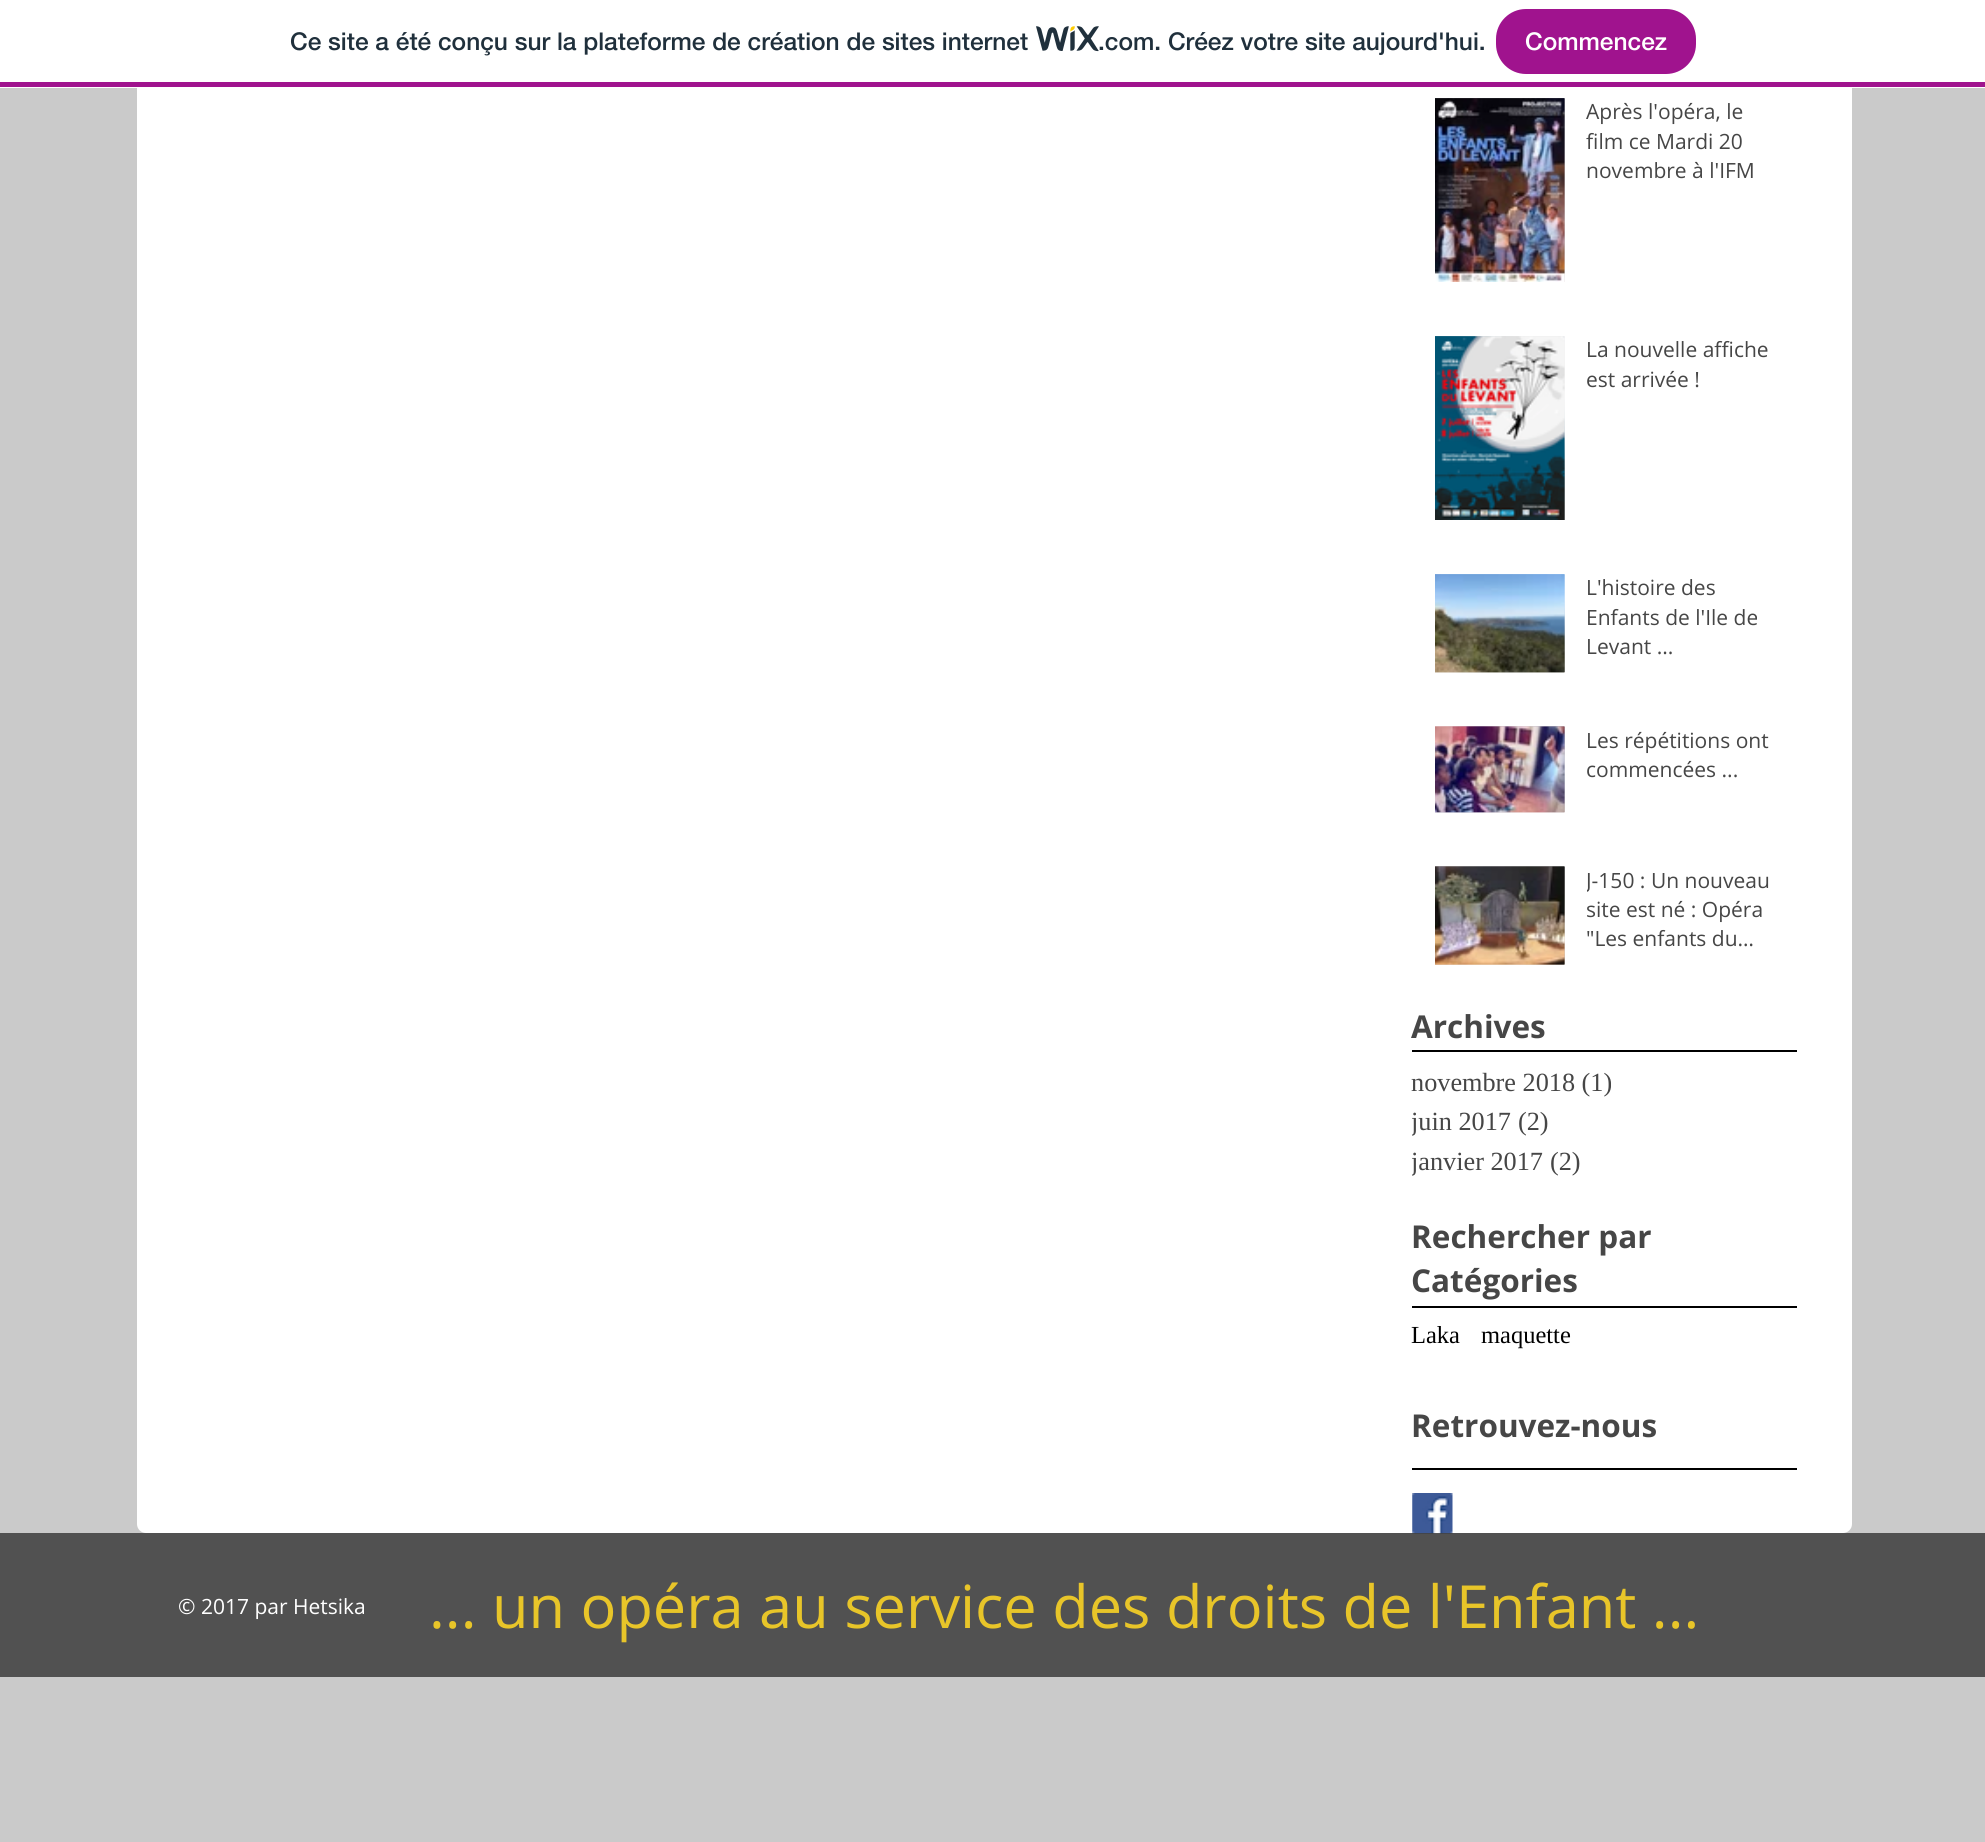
import math
import cairo


def round_path(ctx, x, y, w, h, r):
	ctx.new_sub_path()
	for i, (u, v) in enumerate([(x + w - r, y + h - r), (x + r, y + h - r), (x + r, y + r), (x + w - r, y + r)]):
		ctx.arc(u, v, r, i * math.pi / 2, (i + 1) * math.pi / 2)
	ctx.close_path()

def paste(ctx, path, x, y, w, h):
	ctx.save()
	ctx.set_source_surface(cairo.ImageSurface.create_from_png(path), x, y)
	ctx.rectangle(x, y, w, h)
	ctx.fill()
	ctx.restore()

def draw(ctx):
	ctx.set_source_rgb(0.792, 0.792, 0.792)
	ctx.paint()
	ctx.set_source_rgb(1, 1, 1)
	round_path(ctx, 138, -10, 1713, 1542, 8)
	ctx.fill_preserve()
	ctx.stroke()
	ctx.rectangle(0, 0, 1985, 88)
	ctx.fill()
	ctx.set_source_rgb(0.627, 0.075, 0.557)
	ctx.rectangle(0, 82, 1985, 5)
	ctx.fill()
	ctx.select_font_face('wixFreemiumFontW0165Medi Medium')
	ctx.set_font_size(24.5)
	ctx.set_source_rgb(0.125, 0.188, 0.235)
	ctx.move_to(290, 50)
	ctx.show_text('Ce site a été conçu sur la plateforme de création de sites internet')
	paste(ctx, 'media/1.png', 1036, 26, 63, 26)
	ctx.move_to(1098, 50)
	ctx.show_text('.com. Créez votre site aujourd\'hui.')
	ctx.set_source_rgb(0.627, 0.075, 0.557)
	round_path(ctx, 1497, 10, 198, 63, 29)
	ctx.fill_preserve()
	ctx.stroke()
	ctx.set_source_rgb(1, 1, 1)
	ctx.move_to(1525, 50)
	ctx.show_text('Commencez')
	paste(ctx, 'media/2.png', 1435, 98, 130, 184)
	paste(ctx, 'media/3.png', 1435, 98, 130, 184)
	ctx.select_font_face('Open Sans')
	ctx.set_font_size(21)
	ctx.set_source_rgb(0.275, 0.275, 0.275)
	for x, y, s in [
		(1586, 119, 'Après l\'opéra, le'),
		(1586, 149, 'film ce Mardi 20'),
		(1586, 178, 'novembre à l\'IFM'),
	]:
		ctx.move_to(x, y)
		ctx.show_text(s)
	paste(ctx, 'media/4.png', 1435, 336, 130, 184)
	paste(ctx, 'media/5.png', 1435, 336, 130, 184)
	ctx.move_to(1586, 357)
	ctx.show_text('La nouvelle affiche')
	ctx.move_to(1586, 387)
	ctx.show_text('est arrivée !')
	paste(ctx, 'media/6.png', 1435, 574, 130, 99)
	paste(ctx, 'media/7.png', 1435, 574, 130, 99)
	for x, y, s in [
		(1586, 595, 'L\'histoire des'),
		(1586, 625, 'Enfants de l\'Ile de'),
		(1586, 654, 'Levant ...'),
	]:
		ctx.move_to(x, y)
		ctx.show_text(s)
	paste(ctx, 'media/8.png', 1435, 726, 130, 87)
	paste(ctx, 'media/9.png', 1435, 726, 130, 87)
	ctx.move_to(1586, 748)
	ctx.show_text('Les répétitions ont')
	ctx.move_to(1586, 777)
	ctx.show_text('commencées ...')
	paste(ctx, 'media/10.png', 1435, 866, 130, 99)
	paste(ctx, 'media/11.png', 1435, 866, 130, 99)
	ctx.save()
	ctx.rectangle(1587, 865, 189, 89)
	ctx.clip()
	ctx.move_to(1586, 888)
	ctx.show_text('J-150 : Un nouveau')
	ctx.restore()
	ctx.move_to(1586, 917)
	ctx.show_text('site est né : Opéra')
	ctx.move_to(1586, 946)
	ctx.show_text('"Les enfants du…')
	ctx.select_font_face('Open Sans', cairo.FONT_SLANT_NORMAL, cairo.FONT_WEIGHT_BOLD)
	ctx.set_font_size(31.5)
	ctx.move_to(1411, 1038)
	ctx.show_text('Archives')
	ctx.set_source_rgb(0, 0, 0)
	ctx.rectangle(1412, 1050, 385, 2)
	ctx.fill()
	ctx.select_font_face('Liberation Serif')
	ctx.set_font_size(26.25)
	ctx.set_source_rgb(0.275, 0.275, 0.275)
	ctx.move_to(1411, 1091)
	ctx.show_text('novembre 2018 (1)')
	ctx.save()
	ctx.rectangle(1412, 1103, 137, 38)
	ctx.clip()
	ctx.move_to(1411, 1130)
	ctx.show_text('juin 2017')
	ctx.restore()
	ctx.move_to(1518, 1130)
	ctx.show_text('(2)')
	ctx.save()
	ctx.rectangle(1412, 1141, 168, 40)
	ctx.clip()
	ctx.move_to(1411, 1170)
	ctx.show_text('janvier 2017')
	ctx.restore()
	ctx.move_to(1550, 1170)
	ctx.show_text('(2)')
	ctx.select_font_face('Open Sans', cairo.FONT_SLANT_NORMAL, cairo.FONT_WEIGHT_BOLD)
	ctx.set_font_size(31.5)
	ctx.move_to(1411, 1248)
	ctx.show_text('Rechercher par')
	ctx.move_to(1411, 1292)
	ctx.show_text('Catégories')
	ctx.set_source_rgb(0, 0, 0)
	ctx.rectangle(1412, 1306, 385, 2)
	ctx.fill()
	ctx.select_font_face('Liberation Serif')
	ctx.set_font_size(24.5)
	ctx.move_to(1411, 1343)
	ctx.show_text('Laka')
	ctx.move_to(1481, 1343)
	ctx.show_text('maquette')
	ctx.select_font_face('Open Sans', cairo.FONT_SLANT_NORMAL, cairo.FONT_WEIGHT_BOLD)
	ctx.set_font_size(31.5)
	ctx.set_source_rgb(0.275, 0.275, 0.275)
	ctx.move_to(1411, 1437)
	ctx.show_text('Retrouvez-nous')
	ctx.set_source_rgb(0, 0, 0)
	ctx.rectangle(1412, 1468, 385, 2)
	ctx.fill()
	paste(ctx, 'media/12.png', 1412, 1493, 41, 41)
	ctx.set_source_rgba(0, 0, 0, 0.6)
	ctx.rectangle(0, 1533, 1985, 144)
	ctx.fill()
	ctx.select_font_face('Open Sans')
	ctx.set_font_size(21)
	ctx.set_source_rgb(1, 1, 1)
	ctx.move_to(178, 1614)
	ctx.show_text('© 2017 par Hetsika')
	ctx.set_font_size(59.5)
	ctx.set_source_rgb(0.91, 0.773, 0.161)
	ctx.move_to(429, 1628)
	ctx.show_text('... un opéra au service des droits de l\'Enfant ...')


surface = cairo.ImageSurface(cairo.FORMAT_RGB24, 1985, 1842)
ctx = cairo.Context(surface)
options = cairo.FontOptions()
options.set_hint_metrics(cairo.HINT_METRICS_OFF)
options.set_hint_style(cairo.HINT_STYLE_NONE)
ctx.set_font_options(options)
ctx.set_miter_limit(4)
draw(ctx)
surface.write_to_png('image.png')
